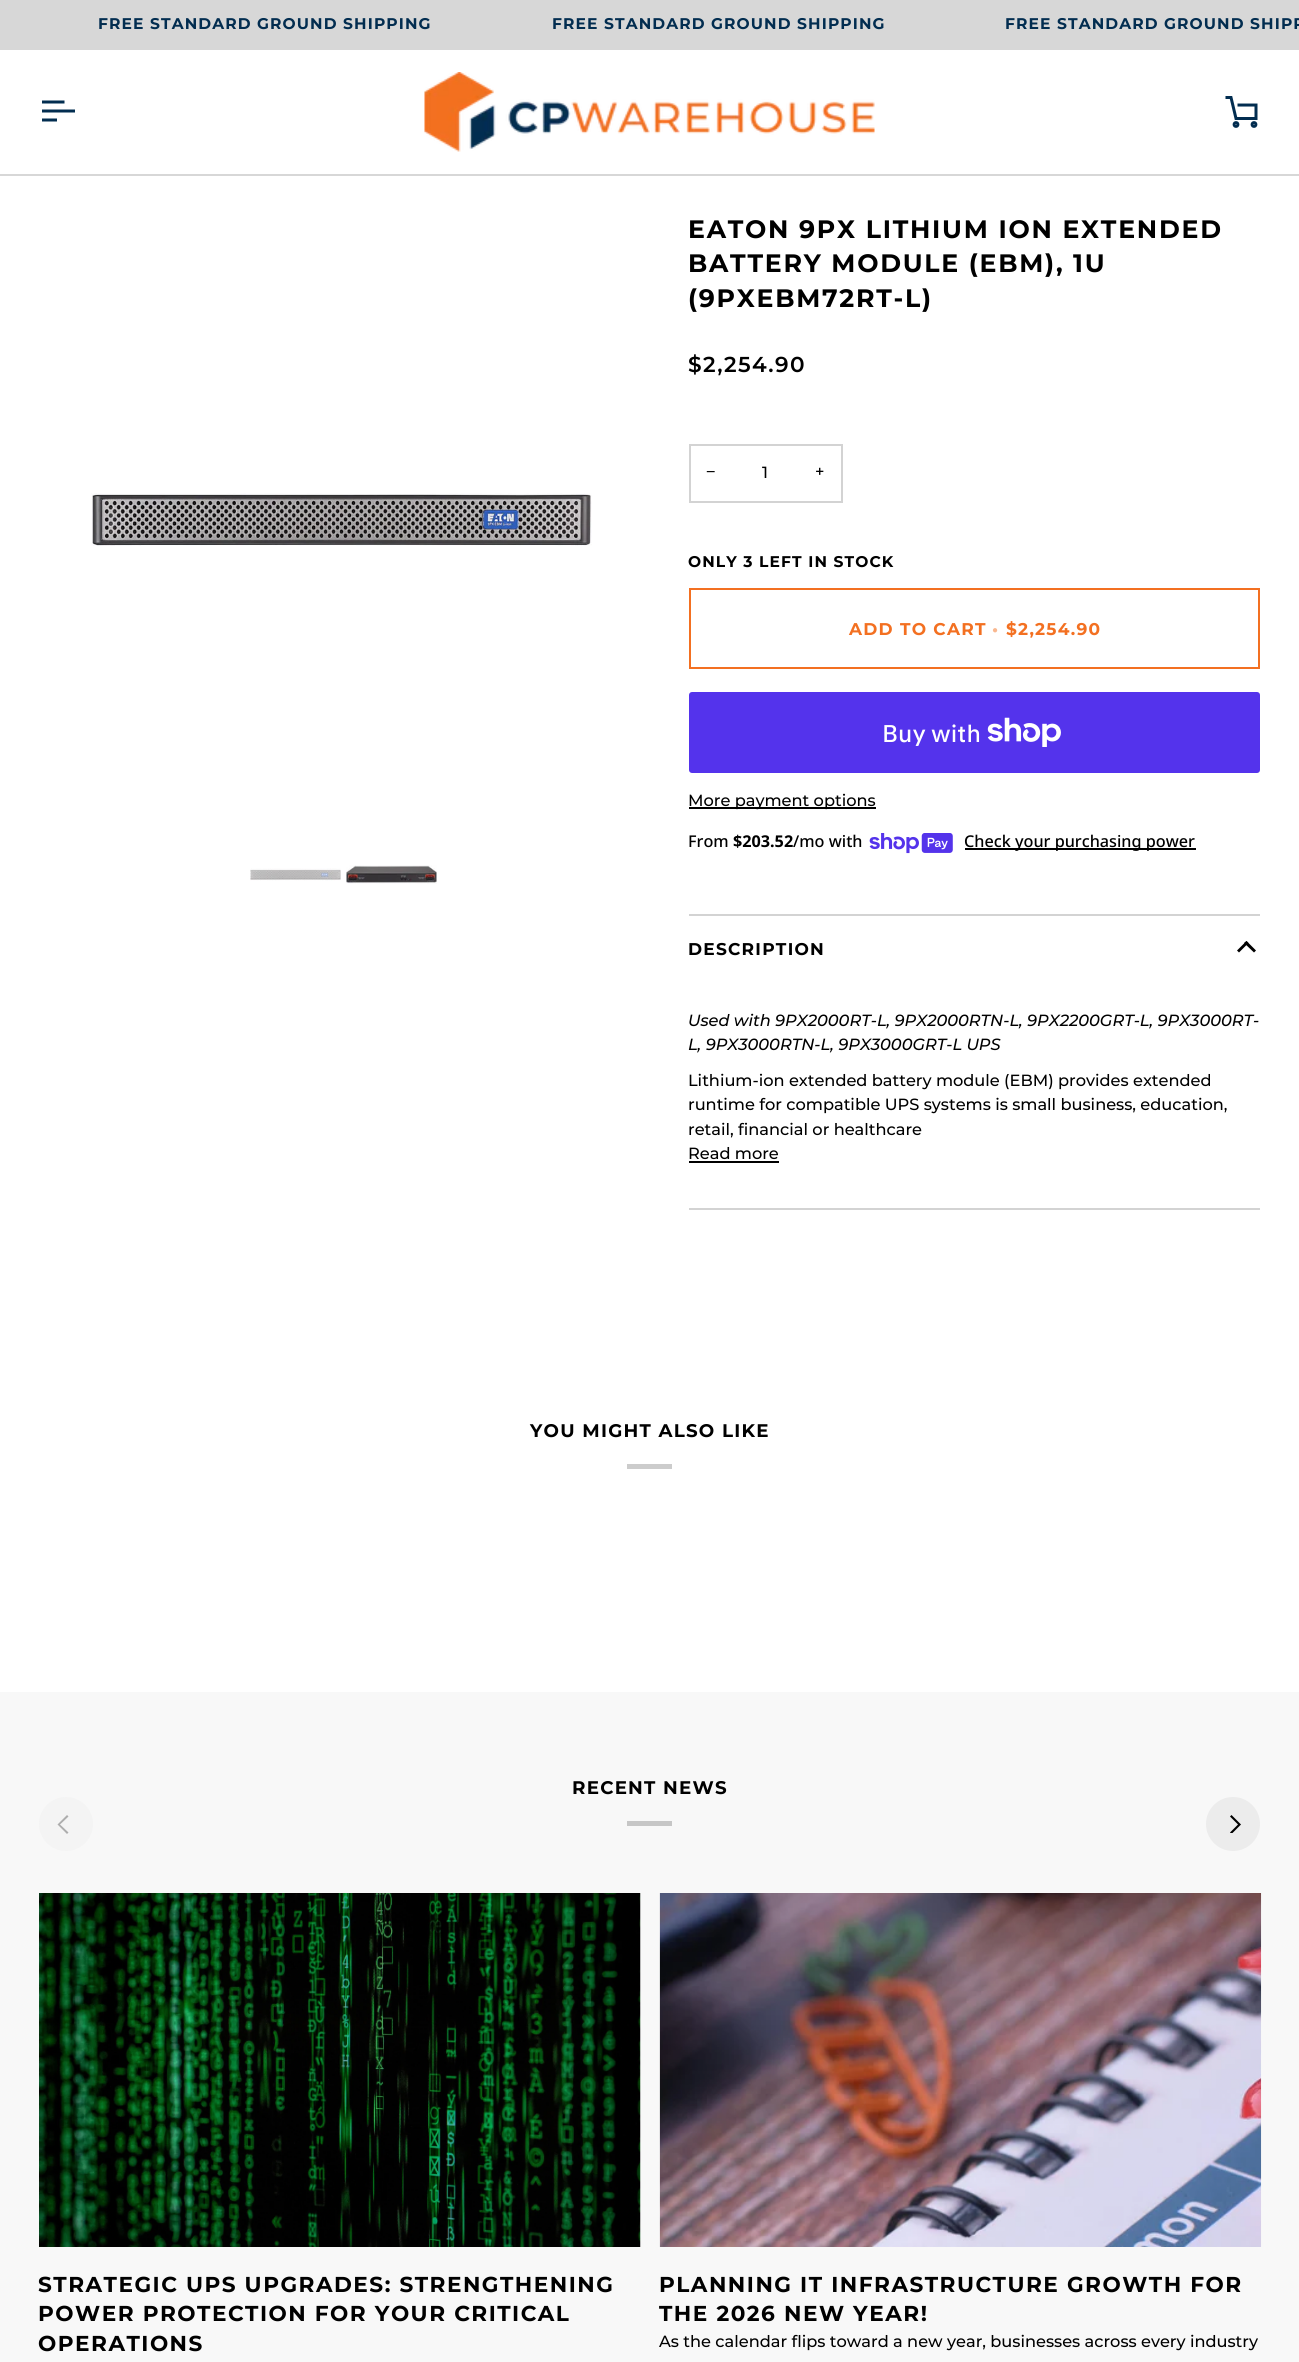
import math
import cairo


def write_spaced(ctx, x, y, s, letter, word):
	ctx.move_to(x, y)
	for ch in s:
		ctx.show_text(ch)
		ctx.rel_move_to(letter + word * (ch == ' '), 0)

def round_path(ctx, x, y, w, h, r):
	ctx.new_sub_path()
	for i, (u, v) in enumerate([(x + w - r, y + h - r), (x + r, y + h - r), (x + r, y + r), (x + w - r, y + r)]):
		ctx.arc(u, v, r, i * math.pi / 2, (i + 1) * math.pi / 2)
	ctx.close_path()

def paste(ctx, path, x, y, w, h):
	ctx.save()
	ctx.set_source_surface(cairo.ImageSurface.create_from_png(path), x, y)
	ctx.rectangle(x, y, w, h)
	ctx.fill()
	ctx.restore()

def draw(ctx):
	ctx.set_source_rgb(1, 1, 1)
	ctx.paint()
	ctx.set_source_rgb(0.843, 0.843, 0.843)
	ctx.rectangle(0, 0, 1299, 50)
	ctx.fill()
	ctx.select_font_face('Montserrat', cairo.FONT_SLANT_NORMAL, cairo.FONT_WEIGHT_BOLD)
	ctx.set_font_size(15.5)
	ctx.set_source_rgb(0.008, 0.176, 0.314)
	for x, y, s in [
		(98, 29, 'FREE STANDARD GROUND SHIPPING'),
		(552, 29, 'FREE STANDARD GROUND SHIPPING'),
		(1005, 29, 'FREE STANDARD GROUND SHIPP'),
	]:
		write_spaced(ctx, x, y, s, 1.1, 0)
	ctx.set_source_rgb(0.843, 0.843, 0.843)
	ctx.rectangle(0, 174, 1299, 2)
	ctx.fill()
	ctx.new_path()
	ctx.move_to(63, 102)
	ctx.line_to(43.5, 102)
	ctx.move_to(73.5, 111)
	ctx.line_to(43.5, 111)
	ctx.move_to(55.5, 120)
	ctx.line_to(43.5, 120)
	ctx.set_source_rgb(0.008, 0.176, 0.314)
	ctx.set_line_width(3)
	ctx.set_line_cap(cairo.LINE_CAP_SQUARE)
	ctx.stroke()
	paste(ctx, 'media/1.png', 424, 72, 451, 80)
	ctx.new_path()
	ctx.move_to(1225.5, 97.5)
	ctx.line_to(1231, 97.5)
	ctx.line_to(1236, 118.5)
	ctx.line_to(1256, 118.5)
	ctx.line_to(1256, 105)
	ctx.line_to(1237.5, 105)
	ctx.set_line_cap(cairo.LINE_CAP_BUTT)
	ctx.stroke()
	ctx.arc(1236, 124.5, 1.9, 0, 2 * math.pi)
	ctx.stroke()
	ctx.arc(1254, 124.5, 1.9, 0, 2 * math.pi)
	ctx.stroke()
	paste(ctx, 'media/2.png', 91, 493, 501, 53)
	paste(ctx, 'media/3.png', 250, 868, 91, 13)
	paste(ctx, 'media/4.png', 346, 865, 91, 19)
	ctx.set_font_size(25.2)
	ctx.set_source_rgb(0, 0, 0)
	for x, y, s in [
		(688, 238, 'EATON 9PX LITHIUM ION EXTENDED'),
		(688, 272, 'BATTERY MODULE (EBM), 1U'),
		(688, 307, '(9PXEBM72RT-L)'),
	]:
		write_spaced(ctx, x, y, s, 1.75, 0)
	ctx.select_font_face('Montserrat SemiBold')
	ctx.set_font_size(21.6)
	write_spaced(ctx, 688, 372, '$2,254.90', 1.5, 0)
	ctx.rectangle(690, 445, 152, 57)
	ctx.set_source_rgb(0.827, 0.827, 0.827)
	ctx.set_line_width(2)
	ctx.stroke()
	ctx.select_font_face('Liberation Sans')
	ctx.set_font_size(16.2)
	ctx.set_source_rgb(0, 0, 0)
	ctx.move_to(706, 477)
	ctx.show_text('−')
	ctx.select_font_face('Montserrat Medium')
	ctx.move_to(762, 478)
	ctx.show_text('1')
	ctx.move_to(815, 477)
	ctx.show_text('+')
	ctx.select_font_face('Montserrat', cairo.FONT_SLANT_NORMAL, cairo.FONT_WEIGHT_BOLD)
	ctx.set_font_size(15.5)
	write_spaced(ctx, 688, 567, 'ONLY 3 LEFT IN STOCK', 1.1, 0)
	ctx.rectangle(690, 589, 569, 79)
	ctx.set_source_rgb(0.953, 0.439, 0.129)
	ctx.stroke()
	ctx.set_font_size(17)
	write_spaced(ctx, 849, 635, 'ADD TO CART', 1.25, 0)
	ctx.set_source_rgb(0.976, 0.722, 0.565)
	write_spaced(ctx, 992, 635, '•', 1.25, 0)
	ctx.set_source_rgb(0.953, 0.439, 0.129)
	write_spaced(ctx, 1006, 635, '$2,254.90', 1.25, 0)
	ctx.set_source_rgb(0.329, 0.2, 0.922)
	round_path(ctx, 689, 692, 571, 81, 3)
	ctx.fill()
	ctx.select_font_face('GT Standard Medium')
	ctx.set_font_size(24)
	ctx.set_source_rgb(1, 1, 1)
	ctx.move_to(882, 742)
	ctx.show_text('Buy with')
	paste(ctx, 'media/5.png', 987, 717, 74, 30)
	ctx.set_source_rgb(0, 0, 0)
	ctx.rectangle(689, 807, 187, 2)
	ctx.fill()
	ctx.select_font_face('Montserrat Medium')
	ctx.set_font_size(16.2)
	ctx.move_to(688, 806)
	ctx.show_text('More payment options')
	ctx.select_font_face('Noto Sans Medium')
	ctx.move_to(688, 847)
	ctx.show_text('From')
	ctx.select_font_face('Noto Sans', cairo.FONT_SLANT_NORMAL, cairo.FONT_WEIGHT_BOLD)
	ctx.move_to(733, 847)
	ctx.show_text('$203.52')
	ctx.select_font_face('Noto Sans Medium')
	ctx.move_to(793, 847)
	ctx.show_text('/mo with')
	paste(ctx, 'media/6.png', 869, 833, 84, 21)
	ctx.rectangle(965, 848, 231, 2)
	ctx.fill()
	ctx.move_to(964, 847)
	ctx.show_text('Check your purchasing power')
	ctx.set_source_rgb(0.827, 0.827, 0.827)
	ctx.rectangle(689, 914, 571, 2)
	ctx.fill()
	ctx.rectangle(689, 1208, 571, 2)
	ctx.fill()
	ctx.select_font_face('Montserrat', cairo.FONT_SLANT_NORMAL, cairo.FONT_WEIGHT_BOLD)
	ctx.set_font_size(17)
	ctx.set_source_rgb(0, 0, 0)
	write_spaced(ctx, 688, 955, 'DESCRIPTION', 1.25, 0)
	ctx.new_path()
	ctx.move_to(1248.5, 943)
	ctx.line_to(1239, 952.5)
	ctx.line_to(1237, 950.5)
	ctx.line_to(1246.5, 941)
	ctx.close_path()
	ctx.fill()
	ctx.new_path()
	ctx.move_to(1256, 950.5)
	ctx.line_to(1254, 952.5)
	ctx.line_to(1244, 943)
	ctx.line_to(1246.5, 941)
	ctx.close_path()
	ctx.fill()
	ctx.select_font_face('Montserrat Medium', cairo.FONT_SLANT_ITALIC)
	ctx.set_font_size(16.2)
	ctx.move_to(688, 1026)
	ctx.show_text('Used with 9PX2000RT-L, 9PX2000RTN-L, 9PX2200GRT-L, 9PX3000RT-')
	ctx.move_to(688, 1050)
	ctx.show_text('L, 9PX3000RTN-L, 9PX3000GRT-L UPS')
	ctx.select_font_face('Montserrat Medium')
	for x, y, s in [
		(688, 1086, 'Lithium-ion extended battery module (EBM) provides extended'),
		(688, 1110, 'runtime for compatible UPS systems is small business, education,'),
		(688, 1135, 'retail, financial or healthcare'),
		(688, 1159, 'Read more'),
	]:
		ctx.move_to(x, y)
		ctx.show_text(s)
	ctx.rectangle(689, 1161, 90, 2)
	ctx.fill()
	ctx.select_font_face('Montserrat', cairo.FONT_SLANT_NORMAL, cairo.FONT_WEIGHT_BOLD)
	ctx.set_font_size(18.25)
	write_spaced(ctx, 530, 1437, 'YOU MIGHT ALSO LIKE', 1.25, 0)
	ctx.set_source_rgb(0.8, 0.8, 0.8)
	ctx.rectangle(627, 1464, 45, 5)
	ctx.fill()
	ctx.set_source_rgb(0.969, 0.969, 0.969)
	ctx.rectangle(0, 1692, 1299, 670)
	ctx.fill()
	ctx.set_source_rgb(0, 0, 0)
	write_spaced(ctx, 572, 1794, 'RECENT NEWS', 1.25, 0)
	ctx.set_source_rgb(0.776, 0.776, 0.776)
	ctx.rectangle(627, 1821, 45, 5)
	ctx.fill()
	ctx.set_source_rgb(0.957, 0.957, 0.957)
	ctx.arc(66, 1824, 27, 0, 2 * math.pi)
	ctx.fill()
	ctx.set_source_rgb(0.678, 0.678, 0.678)
	ctx.new_path()
	ctx.move_to(57.5, 1824.5)
	ctx.line_to(67, 1834)
	ctx.line_to(68.5, 1832.5)
	ctx.line_to(60, 1824.5)
	ctx.line_to(68.5, 1816.5)
	ctx.line_to(67, 1815)
	ctx.close_path()
	ctx.fill()
	ctx.set_source_rgb(0.925, 0.925, 0.925)
	ctx.arc(1233, 1824, 27, 0, 2 * math.pi)
	ctx.fill()
	ctx.save()
	ctx.rectangle(1224, 1815, 20, 18)
	ctx.clip()
	ctx.set_source_rgb(0, 0, 0)
	ctx.new_path()
	ctx.move_to(1241, 1824.5)
	ctx.line_to(1231.5, 1815)
	ctx.line_to(1230, 1816.5)
	ctx.line_to(1238, 1824.5)
	ctx.line_to(1230, 1832.5)
	ctx.line_to(1231.5, 1834)
	ctx.close_path()
	ctx.fill()
	ctx.restore()
	paste(ctx, 'media/7.png', 39, 1893, 602, 354)
	ctx.set_font_size(21.6)
	ctx.set_source_rgb(0, 0, 0)
	for x, y, s in [
		(38, 2292, 'STRATEGIC UPS UPGRADES: STRENGTHENING'),
		(38, 2321, 'POWER PROTECTION FOR YOUR CRITICAL'),
		(38, 2351, 'OPERATIONS'),
	]:
		write_spaced(ctx, x, y, s, 1.5, 0)
	paste(ctx, 'media/8.png', 659, 1893, 603, 354)
	write_spaced(ctx, 659, 2292, 'PLANNING IT INFRASTRUCTURE GROWTH FOR', 1.5, 0)
	write_spaced(ctx, 659, 2321, 'THE 2026 NEW YEAR!', 1.5, 0)
	ctx.select_font_face('Montserrat Medium')
	ctx.set_font_size(16.2)
	ctx.move_to(659, 2347)
	ctx.show_text('As the calendar flips toward a new year, businesses across every industry')


surface = cairo.ImageSurface(cairo.FORMAT_RGB24, 1299, 2362)
ctx = cairo.Context(surface)
options = cairo.FontOptions()
options.set_hint_metrics(cairo.HINT_METRICS_OFF)
options.set_hint_style(cairo.HINT_STYLE_NONE)
ctx.set_font_options(options)
ctx.set_miter_limit(4)
draw(ctx)
surface.write_to_png('image.png')
